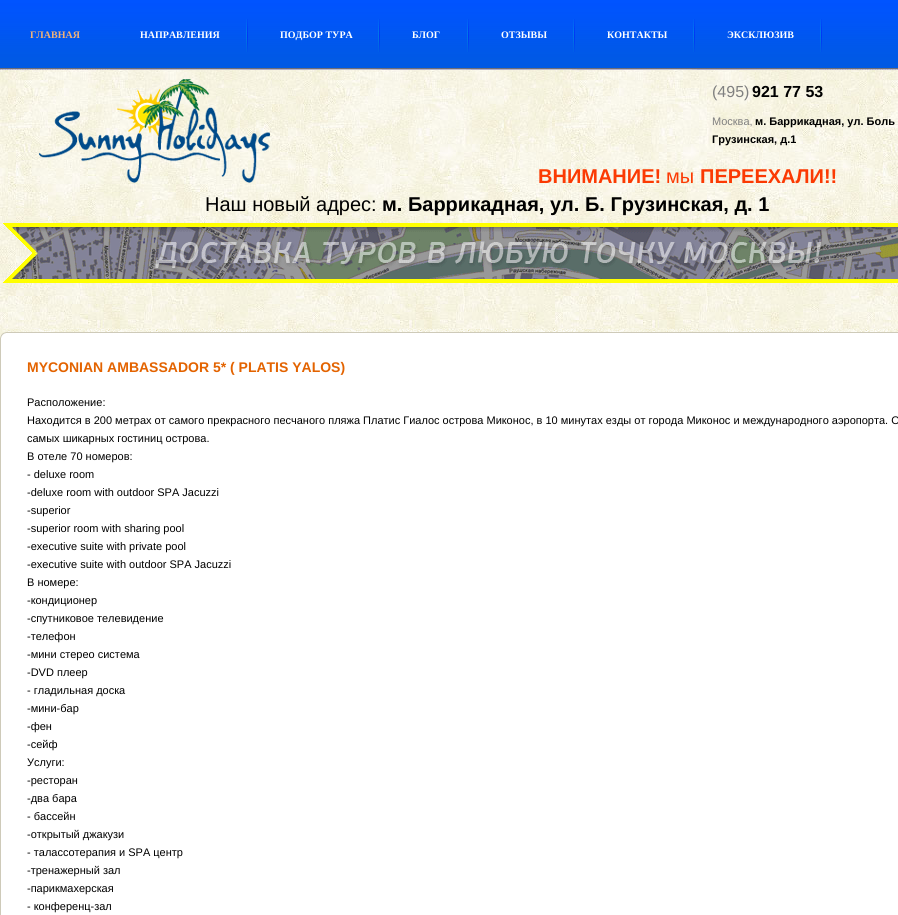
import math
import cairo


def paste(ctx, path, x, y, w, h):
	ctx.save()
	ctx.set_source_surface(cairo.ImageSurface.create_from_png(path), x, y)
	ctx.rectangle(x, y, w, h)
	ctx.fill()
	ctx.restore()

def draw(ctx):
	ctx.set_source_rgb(1, 1, 1)
	ctx.paint()
	paste(ctx, 'media/1.png', 0, 70, 898, 259)
	paste(ctx, 'media/2.png', 0, 0, 898, 70)
	ctx.select_font_face('Liberation Serif', cairo.FONT_SLANT_NORMAL, cairo.FONT_WEIGHT_BOLD)
	ctx.set_font_size(10)
	ctx.set_source_rgb(0.945, 0.698, 0.475)
	ctx.move_to(30, 38)
	ctx.show_text('ГЛАВНАЯ')
	paste(ctx, 'media/3.png', 111, 69, 139, 1)
	paste(ctx, 'media/4.png', 246, 19, 2, 33)
	ctx.set_source_rgb(1, 1, 1)
	ctx.move_to(140, 38)
	ctx.show_text('НАПРАВЛЕНИЯ')
	paste(ctx, 'media/5.png', 251, 69, 131, 1)
	paste(ctx, 'media/6.png', 377, 19, 3, 51)
	ctx.move_to(280, 38)
	ctx.show_text('ПОДБОР ТУРА')
	paste(ctx, 'media/7.png', 383, 69, 83, 1)
	paste(ctx, 'media/8.png', 466, 19, 5, 51)
	ctx.move_to(412, 38)
	ctx.show_text('БЛОГ')
	paste(ctx, 'media/9.png', 471, 69, 101, 1)
	paste(ctx, 'media/8.png', 572, 19, 5, 51)
	ctx.move_to(501, 38)
	ctx.show_text('ОТЗЫВЫ')
	paste(ctx, 'media/10.png', 578, 69, 114, 1)
	paste(ctx, 'media/8.png', 692, 19, 5, 51)
	ctx.move_to(607, 38)
	ctx.show_text('КОНТАКТЫ')
	paste(ctx, 'media/11.png', 698, 69, 121, 1)
	paste(ctx, 'media/8.png', 819, 19, 5, 51)
	ctx.move_to(727, 38)
	ctx.show_text('ЭКСКЛЮЗИВ')
	paste(ctx, 'media/12.png', 39, 79, 231, 104)
	ctx.select_font_face('Liberation Sans')
	ctx.set_font_size(16)
	ctx.set_source_rgb(0.502, 0.502, 0.502)
	ctx.move_to(712, 97)
	ctx.show_text('(495)')
	ctx.select_font_face('Liberation Sans', cairo.FONT_SLANT_NORMAL, cairo.FONT_WEIGHT_BOLD)
	ctx.set_source_rgb(0, 0, 0)
	ctx.move_to(752, 97)
	ctx.show_text('921 77 53')
	ctx.select_font_face('Liberation Sans')
	ctx.set_font_size(11)
	ctx.set_source_rgb(0.502, 0.502, 0.502)
	ctx.move_to(712, 125)
	ctx.show_text('Москва,')
	ctx.select_font_face('Liberation Sans', cairo.FONT_SLANT_NORMAL, cairo.FONT_WEIGHT_BOLD)
	ctx.set_source_rgb(0, 0, 0)
	ctx.move_to(755, 125)
	ctx.show_text('м. Баррикадная, ул. Боль')
	ctx.move_to(712, 143)
	ctx.show_text('Грузинская, д.1')
	ctx.set_font_size(20)
	ctx.set_source_rgb(0.984, 0.227, 0.012)
	ctx.move_to(538, 183)
	ctx.show_text('ВНИМАНИЕ!')
	ctx.select_font_face('Liberation Sans')
	ctx.move_to(666, 183)
	ctx.show_text('мы')
	ctx.select_font_face('Liberation Sans', cairo.FONT_SLANT_NORMAL, cairo.FONT_WEIGHT_BOLD)
	ctx.move_to(700, 183)
	ctx.show_text('ПЕРЕЕХАЛИ!!')
	ctx.select_font_face('Liberation Sans')
	ctx.set_source_rgb(0, 0, 0)
	ctx.move_to(205, 211)
	ctx.show_text('Наш новый адрес:')
	ctx.select_font_face('Liberation Sans', cairo.FONT_SLANT_NORMAL, cairo.FONT_WEIGHT_BOLD)
	ctx.move_to(382, 211)
	ctx.show_text('м. Баррикадная, ул. Б. Грузинская, д. 1')
	paste(ctx, 'media/13.png', 3, 223, 895, 60)
	ctx.set_source_rgb(0.808, 0.792, 0.725)
	ctx.rectangle(0, 338, 1, 577)
	ctx.fill()
	paste(ctx, 'media/14.png', 0, 329, 500, 9)
	paste(ctx, 'media/15.png', 475, 329, 423, 4)
	ctx.set_font_size(14)
	ctx.set_source_rgb(0.89, 0.388, 0)
	ctx.move_to(27, 372)
	ctx.show_text('MYCONIAN AMBASSADOR 5* ( PLATIS YALOS)')
	ctx.select_font_face('Liberation Sans')
	ctx.set_font_size(11)
	ctx.set_source_rgb(0, 0, 0)
	for x, y, s in [
		(27, 406, 'Расположение:'),
		(27, 424, 'Находится в 200 метрах от самого прекрасного песчаного пляжа Платис Гиалос острова Миконос, в 10 минутах езды от города Миконос и международного аэропорта. О'),
		(27, 442, 'самых шикарных гостиниц острова.'),
		(27, 460, 'В отеле 70 номеров:'),
		(27, 478, '- deluxe room'),
		(27, 496, '-deluxe room with outdoor SPA Jacuzzi'),
		(27, 514, '-superior'),
		(27, 532, '-superior room with sharing pool'),
		(27, 550, '-executive suite with private pool'),
		(27, 568, '-executive suite with outdoor SPA Jacuzzi'),
		(27, 586, 'В номере:'),
		(27, 604, '-кондиционер'),
		(27, 622, '-спутниковое телевидение'),
		(27, 640, '-телефон'),
		(27, 658, '-мини стерео система'),
		(27, 676, '-DVD плеер'),
		(27, 694, '- гладильная доска'),
		(27, 712, '-мини-бар'),
		(27, 730, '-фен'),
		(27, 748, '-сейф'),
		(27, 766, 'Услуги:'),
		(27, 784, '-ресторан'),
		(27, 802, '-два бара'),
		(27, 820, '- бассейн'),
		(27, 838, '-открытый джакузи'),
		(27, 856, '- талассотерапия и SPA центр'),
		(27, 874, '-тренажерный зал'),
		(27, 892, '-парикмахерская'),
		(27, 910, '- конференц-зал'),
	]:
		ctx.move_to(x, y)
		ctx.show_text(s)


surface = cairo.ImageSurface(cairo.FORMAT_RGB24, 898, 915)
ctx = cairo.Context(surface)
options = cairo.FontOptions()
options.set_hint_metrics(cairo.HINT_METRICS_OFF)
options.set_hint_style(cairo.HINT_STYLE_NONE)
ctx.set_font_options(options)
ctx.set_miter_limit(4)
draw(ctx)
surface.write_to_png('image.png')
